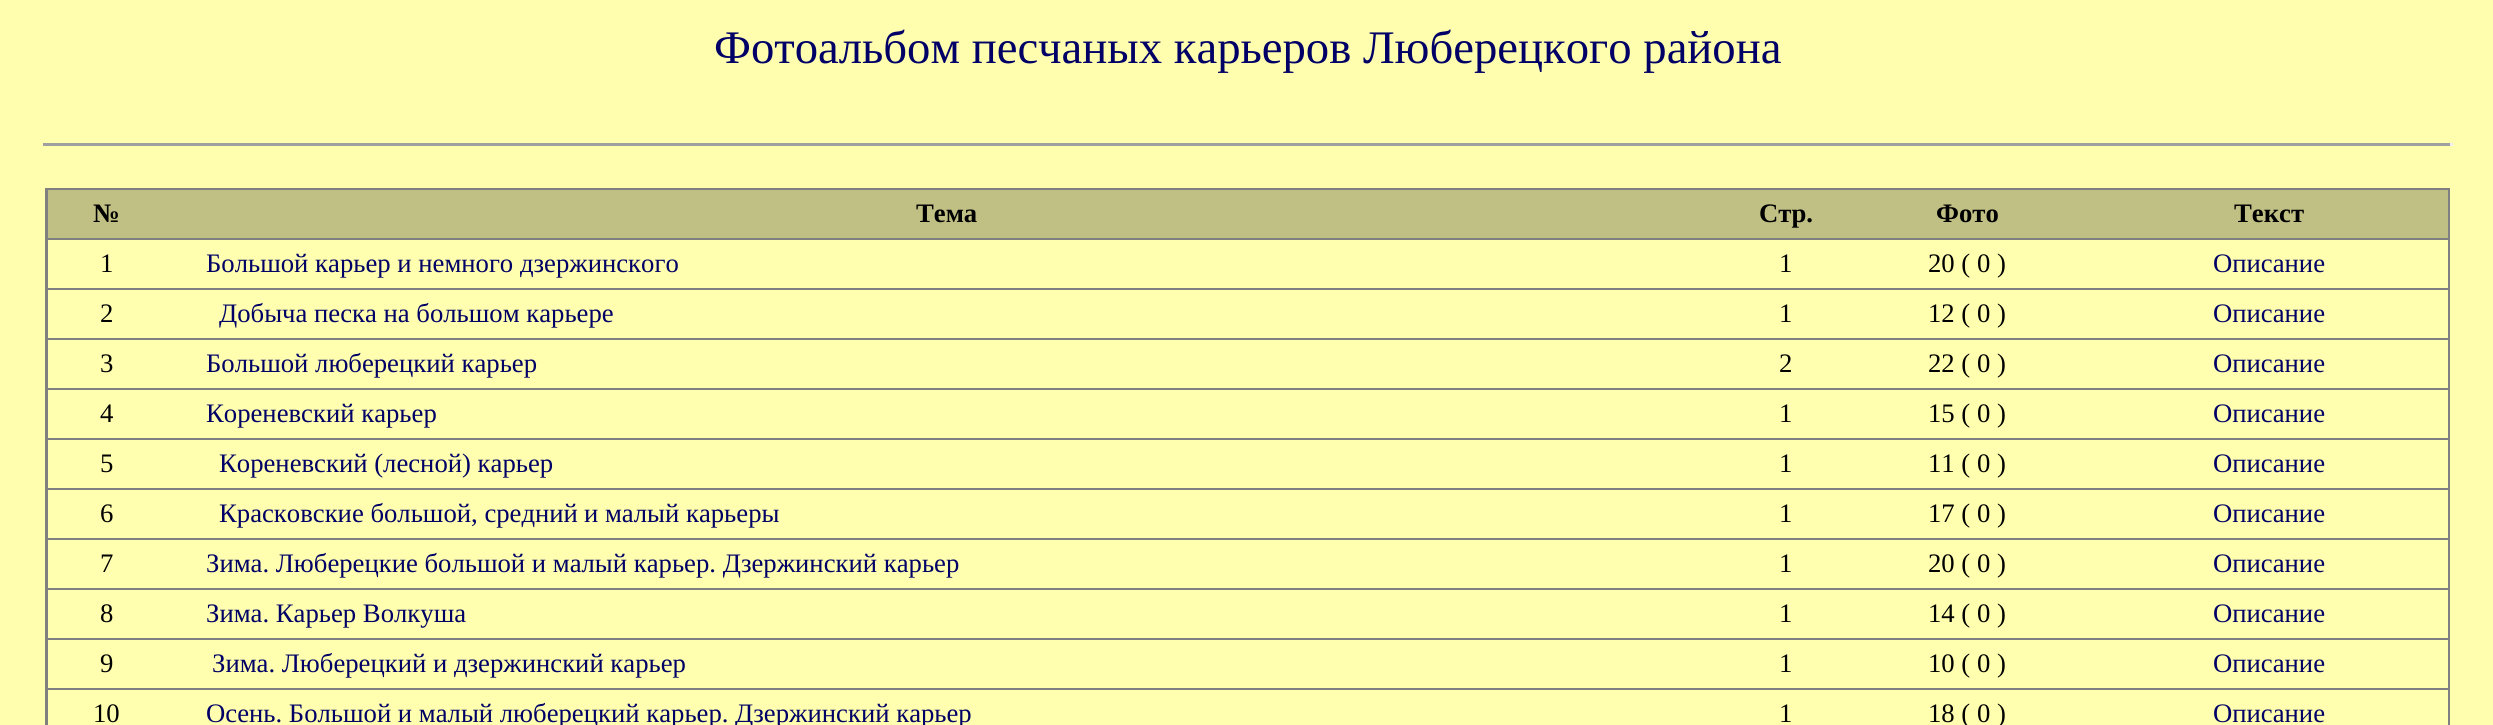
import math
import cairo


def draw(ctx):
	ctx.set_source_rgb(0.996, 0.996, 0.682)
	ctx.paint()
	ctx.select_font_face('Liberation Serif')
	ctx.set_font_size(46.7)
	ctx.set_source_rgb(0, 0, 0.4)
	ctx.move_to(714, 63)
	ctx.show_text('Фотоальбом песчаных карьеров Люберецкого района')
	ctx.set_source_rgb(0.624, 0.624, 0.624)
	ctx.rectangle(43, 143, 2410, 3)
	ctx.fill()
	ctx.set_source_rgb(0.933, 0.933, 0.933)
	ctx.rectangle(2450, 143, 3, 3)
	ctx.fill()
	ctx.set_source_rgb(0.502, 0.502, 0.502)
	ctx.rectangle(45, 188, 2405, 537)
	ctx.fill()
	ctx.set_source_rgb(0.753, 0.753, 0.518)
	ctx.rectangle(48, 190, 2400, 48)
	ctx.fill()
	ctx.select_font_face('Liberation Serif', cairo.FONT_SLANT_NORMAL, cairo.FONT_WEIGHT_BOLD)
	ctx.set_font_size(26.7)
	ctx.set_source_rgb(0, 0, 0)
	for x, y, s in [
		(93, 222, '№'),
		(916, 222, 'Тема'),
		(1759, 222, 'Стр.'),
		(1936, 222, 'Фото'),
		(2234, 222, 'Текст'),
	]:
		ctx.move_to(x, y)
		ctx.show_text(s)
	ctx.set_source_rgb(1, 1, 0.686)
	ctx.rectangle(48, 240, 2400, 48)
	ctx.fill()
	ctx.select_font_face('Liberation Serif')
	ctx.set_source_rgb(0, 0, 0)
	ctx.move_to(100, 272)
	ctx.show_text('1')
	ctx.set_source_rgb(0, 0, 0.4)
	ctx.move_to(206, 272)
	ctx.show_text('Большой карьер и немного дзержинского')
	ctx.set_source_rgb(0, 0, 0)
	ctx.move_to(1779, 272)
	ctx.show_text('1')
	ctx.move_to(1928, 272)
	ctx.show_text('20 ( 0 )')
	ctx.set_source_rgb(0, 0, 0.4)
	ctx.move_to(2213, 272)
	ctx.show_text('Описание')
	ctx.set_source_rgb(1, 1, 0.686)
	ctx.rectangle(48, 290, 2400, 48)
	ctx.fill()
	ctx.set_source_rgb(0, 0, 0)
	ctx.move_to(100, 322)
	ctx.show_text('2')
	ctx.set_source_rgb(0, 0, 0.4)
	ctx.move_to(219, 322)
	ctx.show_text('Добыча песка на большом карьере')
	ctx.set_source_rgb(0, 0, 0)
	ctx.move_to(1779, 322)
	ctx.show_text('1')
	ctx.move_to(1928, 322)
	ctx.show_text('12 ( 0 )')
	ctx.set_source_rgb(0, 0, 0.4)
	ctx.move_to(2213, 322)
	ctx.show_text('Описание')
	ctx.set_source_rgb(1, 1, 0.686)
	ctx.rectangle(48, 340, 2400, 48)
	ctx.fill()
	ctx.set_source_rgb(0, 0, 0)
	ctx.move_to(100, 372)
	ctx.show_text('3')
	ctx.set_source_rgb(0, 0, 0.4)
	ctx.move_to(206, 372)
	ctx.show_text('Большой люберецкий карьер')
	ctx.set_source_rgb(0, 0, 0)
	ctx.move_to(1779, 372)
	ctx.show_text('2')
	ctx.move_to(1928, 372)
	ctx.show_text('22 ( 0 )')
	ctx.set_source_rgb(0, 0, 0.4)
	ctx.move_to(2213, 372)
	ctx.show_text('Описание')
	ctx.set_source_rgb(1, 1, 0.686)
	ctx.rectangle(48, 390, 2400, 48)
	ctx.fill()
	ctx.set_source_rgb(0, 0, 0)
	ctx.move_to(100, 422)
	ctx.show_text('4')
	ctx.set_source_rgb(0, 0, 0.4)
	ctx.move_to(206, 422)
	ctx.show_text('Кореневский карьер')
	ctx.set_source_rgb(0, 0, 0)
	ctx.move_to(1779, 422)
	ctx.show_text('1')
	ctx.move_to(1928, 422)
	ctx.show_text('15 ( 0 )')
	ctx.set_source_rgb(0, 0, 0.4)
	ctx.move_to(2213, 422)
	ctx.show_text('Описание')
	ctx.set_source_rgb(1, 1, 0.686)
	ctx.rectangle(48, 440, 2400, 48)
	ctx.fill()
	ctx.set_source_rgb(0, 0, 0)
	ctx.move_to(100, 472)
	ctx.show_text('5')
	ctx.set_source_rgb(0, 0, 0.4)
	ctx.move_to(219, 472)
	ctx.show_text('Кореневский (лесной) карьер')
	ctx.set_source_rgb(0, 0, 0)
	ctx.move_to(1779, 472)
	ctx.show_text('1')
	ctx.move_to(1928, 472)
	ctx.show_text('11 ( 0 )')
	ctx.set_source_rgb(0, 0, 0.4)
	ctx.move_to(2213, 472)
	ctx.show_text('Описание')
	ctx.set_source_rgb(1, 1, 0.686)
	ctx.rectangle(48, 490, 2400, 48)
	ctx.fill()
	ctx.set_source_rgb(0, 0, 0)
	ctx.move_to(100, 522)
	ctx.show_text('6')
	ctx.set_source_rgb(0, 0, 0.4)
	ctx.move_to(219, 522)
	ctx.show_text('Красковские большой, средний')
	ctx.move_to(584, 522)
	ctx.show_text('и малый карьеры')
	ctx.set_source_rgb(0, 0, 0)
	ctx.move_to(1779, 522)
	ctx.show_text('1')
	ctx.move_to(1928, 522)
	ctx.show_text('17 ( 0 )')
	ctx.set_source_rgb(0, 0, 0.4)
	ctx.move_to(2213, 522)
	ctx.show_text('Описание')
	ctx.set_source_rgb(1, 1, 0.686)
	ctx.rectangle(48, 540, 2400, 48)
	ctx.fill()
	ctx.set_source_rgb(0, 0, 0)
	ctx.move_to(100, 572)
	ctx.show_text('7')
	ctx.set_source_rgb(0, 0, 0.4)
	ctx.move_to(206, 572)
	ctx.show_text('Зима. Люберецкие большой и малый карьер. Дзержинский карьер')
	ctx.set_source_rgb(0, 0, 0)
	ctx.move_to(1779, 572)
	ctx.show_text('1')
	ctx.move_to(1928, 572)
	ctx.show_text('20 ( 0 )')
	ctx.set_source_rgb(0, 0, 0.4)
	ctx.move_to(2213, 572)
	ctx.show_text('Описание')
	ctx.set_source_rgb(1, 1, 0.686)
	ctx.rectangle(48, 590, 2400, 48)
	ctx.fill()
	ctx.set_source_rgb(0, 0, 0)
	ctx.move_to(100, 622)
	ctx.show_text('8')
	ctx.set_source_rgb(0, 0, 0.4)
	ctx.move_to(206, 622)
	ctx.show_text('Зима. Карьер Волкуша')
	ctx.set_source_rgb(0, 0, 0)
	ctx.move_to(1779, 622)
	ctx.show_text('1')
	ctx.move_to(1928, 622)
	ctx.show_text('14 ( 0 )')
	ctx.set_source_rgb(0, 0, 0.4)
	ctx.move_to(2213, 622)
	ctx.show_text('Описание')
	ctx.set_source_rgb(1, 1, 0.686)
	ctx.rectangle(48, 640, 2400, 48)
	ctx.fill()
	ctx.set_source_rgb(0, 0, 0)
	ctx.move_to(100, 672)
	ctx.show_text('9')
	ctx.set_source_rgb(0, 0, 0.4)
	ctx.move_to(212, 672)
	ctx.show_text('Зима. Люберецкий и дзержинский карьер')
	ctx.set_source_rgb(0, 0, 0)
	ctx.move_to(1779, 672)
	ctx.show_text('1')
	ctx.move_to(1928, 672)
	ctx.show_text('10 ( 0 )')
	ctx.set_source_rgb(0, 0, 0.4)
	ctx.move_to(2213, 672)
	ctx.show_text('Описание')
	ctx.set_source_rgb(1, 1, 0.686)
	ctx.rectangle(48, 690, 2400, 35)
	ctx.fill()
	ctx.set_source_rgb(0, 0, 0)
	ctx.move_to(93, 722)
	ctx.show_text('10')
	ctx.set_source_rgb(0, 0, 0.4)
	ctx.move_to(206, 722)
	ctx.show_text('Осень. Большой и малый люберецкий карьер. Дзержинский карьер')
	ctx.set_source_rgb(0, 0, 0)
	ctx.move_to(1779, 722)
	ctx.show_text('1')
	ctx.move_to(1928, 722)
	ctx.show_text('18 ( 0 )')
	ctx.set_source_rgb(0, 0, 0.4)
	ctx.move_to(2213, 722)
	ctx.show_text('Описание')


surface = cairo.ImageSurface(cairo.FORMAT_RGB24, 2493, 725)
ctx = cairo.Context(surface)
options = cairo.FontOptions()
options.set_hint_metrics(cairo.HINT_METRICS_OFF)
options.set_hint_style(cairo.HINT_STYLE_NONE)
ctx.set_font_options(options)
ctx.set_miter_limit(4)
draw(ctx)
surface.write_to_png('image.png')
